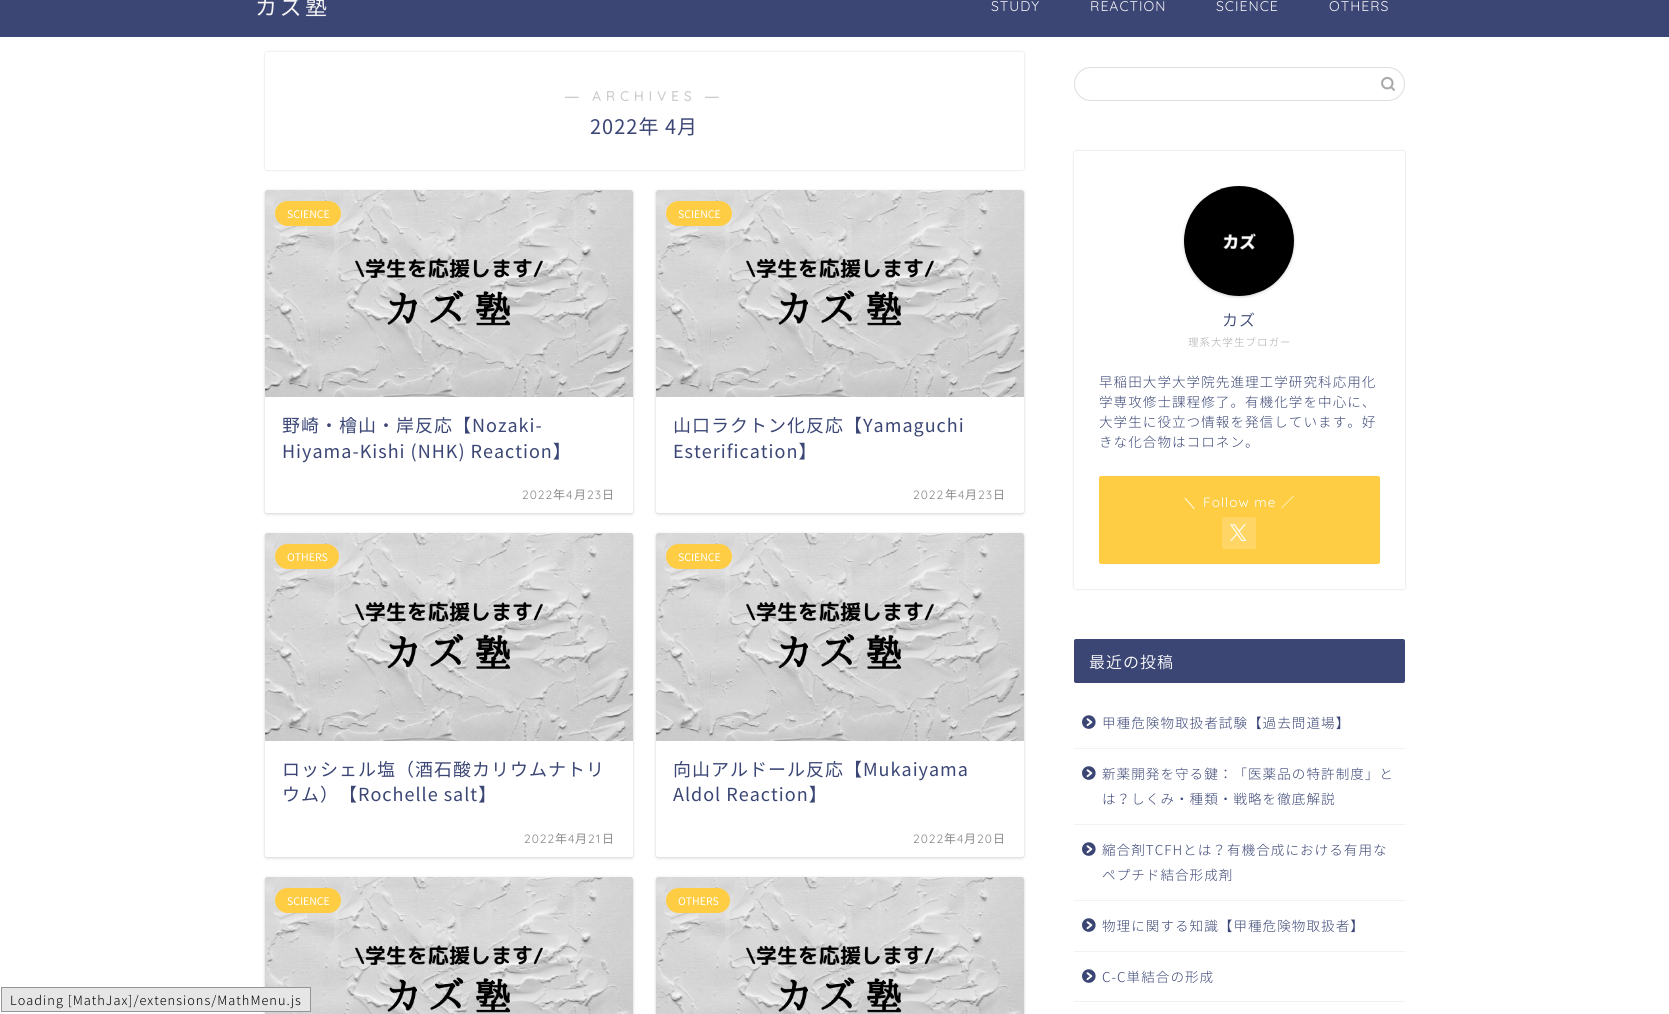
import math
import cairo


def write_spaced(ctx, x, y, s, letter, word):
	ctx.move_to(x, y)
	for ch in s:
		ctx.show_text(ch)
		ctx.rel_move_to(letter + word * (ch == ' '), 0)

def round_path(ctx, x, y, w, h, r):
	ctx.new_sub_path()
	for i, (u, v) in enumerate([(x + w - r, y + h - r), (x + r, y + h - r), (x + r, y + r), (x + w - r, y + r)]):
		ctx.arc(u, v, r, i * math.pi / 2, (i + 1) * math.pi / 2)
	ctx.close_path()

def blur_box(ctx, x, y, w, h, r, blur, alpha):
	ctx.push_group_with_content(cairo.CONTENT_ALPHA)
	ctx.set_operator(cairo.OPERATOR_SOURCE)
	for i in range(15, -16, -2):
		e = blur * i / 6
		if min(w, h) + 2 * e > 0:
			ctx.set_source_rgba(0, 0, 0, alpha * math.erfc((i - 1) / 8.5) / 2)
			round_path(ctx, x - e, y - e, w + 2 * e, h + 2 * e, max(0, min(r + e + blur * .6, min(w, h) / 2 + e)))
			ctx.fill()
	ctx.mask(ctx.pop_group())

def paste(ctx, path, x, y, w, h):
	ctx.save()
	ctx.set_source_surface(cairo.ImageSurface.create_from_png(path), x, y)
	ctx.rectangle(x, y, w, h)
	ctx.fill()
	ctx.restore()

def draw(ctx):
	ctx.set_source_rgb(1, 1, 1)
	ctx.paint()
	ctx.set_source_rgb(0.231, 0.275, 0.459)
	ctx.rectangle(0, 0, 1669, 37)
	ctx.fill()
	ctx.select_font_face('Noto Sans JP')
	ctx.set_font_size(22)
	ctx.set_source_rgb(0.957, 0.957, 0.957)
	write_spaced(ctx, 255, 15, 'カズ塾', 3, 0)
	ctx.select_font_face('Quicksand Light')
	ctx.set_font_size(14)
	for x, y, s in [
		(991, 11, 'STUDY'),
		(1090, 11, 'REACTION'),
		(1216, 11, 'SCIENCE'),
		(1329, 11, 'OTHERS'),
	]:
		write_spaced(ctx, x, y, s, 1, 0)
	ctx.set_source_rgb(0, 0, 0)
	blur_box(ctx, 265, 52, 759, 118, 2, 1, 0.18)
	ctx.set_source_rgb(1, 1, 1)
	round_path(ctx, 265, 52, 759, 118, 2)
	ctx.fill()
	ctx.select_font_face('Liberation Sans', cairo.FONT_SLANT_NORMAL, cairo.FONT_WEIGHT_BOLD)
	ctx.set_font_size(13.6)
	ctx.set_source_rgb(0.8, 0.8, 0.8)
	write_spaced(ctx, 565, 101, '―', 5, 0)
	ctx.select_font_face('Quicksand', cairo.FONT_SLANT_NORMAL, cairo.FONT_WEIGHT_BOLD)
	write_spaced(ctx, 592, 101, 'ARCHIVES', 5, 0)
	ctx.select_font_face('Liberation Sans', cairo.FONT_SLANT_NORMAL, cairo.FONT_WEIGHT_BOLD)
	write_spaced(ctx, 705, 101, '―', 5, 0)
	ctx.select_font_face('Noto Sans JP')
	ctx.set_font_size(20)
	ctx.set_source_rgb(0.231, 0.275, 0.459)
	write_spaced(ctx, 590, 134, '2022年 4月', 1, 0)
	ctx.set_source_rgb(0, 0, 0)
	blur_box(ctx, 265, 191, 368, 323, 2, 1.5, 0.18)
	ctx.set_source_rgb(1, 1, 1)
	round_path(ctx, 265, 190, 368, 323, 2)
	ctx.fill()
	paste(ctx, 'media/1.png', 265, 190, 368, 207)
	ctx.set_source_rgb(1, 0.804, 0.267)
	round_path(ctx, 275, 201, 66, 25, 12.5)
	ctx.fill()
	ctx.set_font_size(10.5)
	ctx.set_source_rgb(1, 1, 1)
	ctx.move_to(287, 218)
	ctx.show_text('SCIENCE')
	ctx.set_font_size(18)
	ctx.set_source_rgb(0.231, 0.275, 0.459)
	write_spaced(ctx, 282, 432, '野崎・檜山・岸反応【Nozaki-', 1, 0)
	write_spaced(ctx, 282, 458, 'Hiyama-Kishi (NHK) Reaction】', 1, 0)
	ctx.select_font_face('Quicksand Light')
	ctx.set_font_size(12)
	ctx.set_source_rgb(0.533, 0.533, 0.533)
	write_spaced(ctx, 522, 499, '2022', 1, 0)
	ctx.select_font_face('Noto Sans JP')
	write_spaced(ctx, 553, 499, '年', 1, 0)
	ctx.select_font_face('Quicksand Light')
	write_spaced(ctx, 566, 499, '4', 1, 0)
	ctx.select_font_face('Noto Sans JP')
	write_spaced(ctx, 574, 499, '月', 1, 0)
	ctx.select_font_face('Quicksand Light')
	write_spaced(ctx, 587, 499, '23', 1, 0)
	ctx.select_font_face('Noto Sans JP')
	write_spaced(ctx, 602, 499, '日', 1, 0)
	ctx.set_source_rgb(0, 0, 0)
	blur_box(ctx, 656, 191, 368, 323, 2, 1.5, 0.18)
	ctx.set_source_rgb(1, 1, 1)
	round_path(ctx, 656, 190, 368, 323, 2)
	ctx.fill()
	paste(ctx, 'media/2.png', 656, 190, 368, 207)
	ctx.set_source_rgb(1, 0.804, 0.267)
	round_path(ctx, 666, 201, 66, 25, 12.5)
	ctx.fill()
	ctx.set_font_size(10.5)
	ctx.set_source_rgb(1, 1, 1)
	ctx.move_to(678, 218)
	ctx.show_text('SCIENCE')
	ctx.set_font_size(18)
	ctx.set_source_rgb(0.231, 0.275, 0.459)
	write_spaced(ctx, 673, 432, '山口ラクトン化反応【Yamaguchi', 1, 0)
	write_spaced(ctx, 673, 458, 'Esterification】', 1, 0)
	ctx.select_font_face('Quicksand Light')
	ctx.set_font_size(12)
	ctx.set_source_rgb(0.533, 0.533, 0.533)
	write_spaced(ctx, 913, 499, '2022', 1, 0)
	ctx.select_font_face('Noto Sans JP')
	write_spaced(ctx, 945, 499, '年', 1, 0)
	ctx.select_font_face('Quicksand Light')
	write_spaced(ctx, 958, 499, '4', 1, 0)
	ctx.select_font_face('Noto Sans JP')
	write_spaced(ctx, 965, 499, '月', 1, 0)
	ctx.select_font_face('Quicksand Light')
	write_spaced(ctx, 978, 499, '23', 1, 0)
	ctx.select_font_face('Noto Sans JP')
	write_spaced(ctx, 993, 499, '日', 1, 0)
	ctx.set_source_rgb(0, 0, 0)
	blur_box(ctx, 265, 534, 368, 324, 2, 1.5, 0.18)
	ctx.set_source_rgb(1, 1, 1)
	round_path(ctx, 265, 533, 368, 324, 2)
	ctx.fill()
	paste(ctx, 'media/3.png', 265, 533, 368, 208)
	ctx.set_source_rgb(1, 0.804, 0.267)
	round_path(ctx, 275, 544, 64, 25, 12.5)
	ctx.fill()
	ctx.set_font_size(10.5)
	ctx.set_source_rgb(1, 1, 1)
	ctx.move_to(287, 561)
	ctx.show_text('OTHERS')
	ctx.set_font_size(18)
	ctx.set_source_rgb(0.231, 0.275, 0.459)
	write_spaced(ctx, 282, 776, 'ロッシェル塩（酒石酸カリウムナトリ', 1, 0)
	write_spaced(ctx, 282, 801, 'ウム）【Rochelle salt】', 1, 0)
	ctx.select_font_face('Quicksand Light')
	ctx.set_font_size(12)
	ctx.set_source_rgb(0.533, 0.533, 0.533)
	write_spaced(ctx, 524, 843, '2022', 1, 0)
	ctx.select_font_face('Noto Sans JP')
	write_spaced(ctx, 555, 843, '年', 1, 0)
	ctx.select_font_face('Quicksand Light')
	write_spaced(ctx, 568, 843, '4', 1, 0)
	ctx.select_font_face('Noto Sans JP')
	write_spaced(ctx, 575, 843, '月', 1, 0)
	ctx.select_font_face('Quicksand Light')
	write_spaced(ctx, 588, 843, '21', 1, 0)
	ctx.select_font_face('Noto Sans JP')
	write_spaced(ctx, 602, 843, '日', 1, 0)
	ctx.set_source_rgb(0, 0, 0)
	blur_box(ctx, 656, 534, 368, 324, 2, 1.5, 0.18)
	ctx.set_source_rgb(1, 1, 1)
	round_path(ctx, 656, 533, 368, 324, 2)
	ctx.fill()
	paste(ctx, 'media/4.png', 656, 533, 368, 208)
	ctx.set_source_rgb(1, 0.804, 0.267)
	round_path(ctx, 666, 544, 66, 25, 12.5)
	ctx.fill()
	ctx.set_font_size(10.5)
	ctx.set_source_rgb(1, 1, 1)
	ctx.move_to(678, 561)
	ctx.show_text('SCIENCE')
	ctx.set_font_size(18)
	ctx.set_source_rgb(0.231, 0.275, 0.459)
	write_spaced(ctx, 673, 776, '向山アルドール反応【Mukaiyama', 1, 0)
	write_spaced(ctx, 673, 801, 'Aldol Reaction】', 1, 0)
	ctx.select_font_face('Quicksand Light')
	ctx.set_font_size(12)
	ctx.set_source_rgb(0.533, 0.533, 0.533)
	write_spaced(ctx, 913, 843, '2022', 1, 0)
	ctx.select_font_face('Noto Sans JP')
	write_spaced(ctx, 944, 843, '年', 1, 0)
	ctx.select_font_face('Quicksand Light')
	write_spaced(ctx, 957, 843, '4', 1, 0)
	ctx.select_font_face('Noto Sans JP')
	write_spaced(ctx, 964, 843, '月', 1, 0)
	ctx.select_font_face('Quicksand Light')
	write_spaced(ctx, 977, 843, '20', 1, 0)
	ctx.select_font_face('Noto Sans JP')
	write_spaced(ctx, 993, 843, '日', 1, 0)
	ctx.set_source_rgb(0, 0, 0)
	blur_box(ctx, 265, 878, 368, 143, 2, 1.5, 0.18)
	paste(ctx, 'media/5.png', 265, 877, 368, 137)
	ctx.set_source_rgb(1, 0.804, 0.267)
	round_path(ctx, 275, 888, 66, 25, 12.5)
	ctx.fill()
	ctx.set_font_size(10.5)
	ctx.set_source_rgb(1, 1, 1)
	ctx.move_to(287, 905)
	ctx.show_text('SCIENCE')
	ctx.set_source_rgb(0, 0, 0)
	blur_box(ctx, 656, 878, 368, 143, 2, 1.5, 0.18)
	paste(ctx, 'media/6.png', 656, 877, 368, 137)
	ctx.set_source_rgb(1, 0.804, 0.267)
	round_path(ctx, 666, 888, 64, 25, 12.5)
	ctx.fill()
	ctx.set_source_rgb(1, 1, 1)
	ctx.move_to(678, 905)
	ctx.show_text('OTHERS')
	round_path(ctx, 1074.5, 67.5, 330, 33, 16.5)
	ctx.set_source_rgb(0.867, 0.867, 0.867)
	ctx.set_line_width(1)
	ctx.stroke()
	paste(ctx, 'media/7.png', 1381, 76, 14, 15)
	ctx.set_source_rgb(0, 0, 0)
	blur_box(ctx, 1074, 151, 331, 438, 2, 1, 0.18)
	ctx.set_source_rgb(1, 1, 1)
	round_path(ctx, 1074, 151, 331, 438, 2)
	ctx.fill()
	ctx.set_source_rgb(0, 0, 0)
	blur_box(ctx, 1184, 187, 110, 110, 55, 1.5, 0.18)
	ctx.set_source_rgb(1, 1, 1)
	ctx.arc(1239, 241, 55, 0, 2 * math.pi)
	ctx.fill()
	paste(ctx, 'media/8.png', 1184, 186, 110, 110)
	ctx.select_font_face('Noto Sans JP Light')
	ctx.set_font_size(16)
	ctx.set_source_rgb(0.231, 0.275, 0.459)
	write_spaced(ctx, 1222, 326, 'カズ', 1, 0)
	ctx.select_font_face('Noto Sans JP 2 Light')
	ctx.set_font_size(10.5)
	ctx.set_source_rgb(0.651, 0.651, 0.651)
	write_spaced(ctx, 1188, 346, '理系大学生ブロガー', 1, 0)
	ctx.set_font_size(13.6)
	ctx.set_source_rgb(0.231, 0.275, 0.459)
	for x, y, s in [
		(1099, 387, '早稲田大学大学院先進理工学研究科応用化'),
		(1099, 407, '学専攻修士課程修了。有機化学を中心に、'),
		(1099, 427, '大学生に役立つ情報を発信しています。好'),
		(1099, 447, 'きな化合物はコロネン。'),
	]:
		write_spaced(ctx, x, y, s, 1, 0)
	ctx.set_source_rgb(1, 0.804, 0.267)
	round_path(ctx, 1099, 476, 281, 88, 2)
	ctx.fill()
	ctx.select_font_face('WenQuanYi Zen Hei Medium')
	ctx.set_source_rgb(1, 1, 1)
	write_spaced(ctx, 1183, 507, '＼', 1, 0)
	ctx.select_font_face('Quicksand Light')
	write_spaced(ctx, 1203, 507, 'Follow me', 1, 0)
	ctx.select_font_face('Noto Sans JP')
	write_spaced(ctx, 1281, 507, '／', 1, 0)
	ctx.set_source_rgb(1, 0.839, 0.4)
	round_path(ctx, 1222, 517, 34, 32, 2)
	ctx.fill()
	paste(ctx, 'media/9.png', 1230, 524, 17, 17)
	ctx.set_source_rgb(0.231, 0.275, 0.459)
	round_path(ctx, 1074, 639, 331, 44, 2)
	ctx.fill()
	ctx.select_font_face('Noto Sans JP Light')
	ctx.set_font_size(16)
	ctx.set_source_rgb(1, 1, 1)
	write_spaced(ctx, 1089, 668, '最近の投稿', 1, 0)
	ctx.set_source_rgb(0.949, 0.949, 0.949)
	ctx.rectangle(1074, 748, 331, 1)
	ctx.fill()
	paste(ctx, 'media/10.png', 1082, 715, 14, 14)
	ctx.select_font_face('Noto Sans JP 2 Light')
	ctx.set_font_size(13.6)
	ctx.set_source_rgb(0.231, 0.275, 0.459)
	write_spaced(ctx, 1102, 728, '甲種危険物取扱者試験【過去問道場】', 1, 0)
	ctx.set_source_rgb(0.949, 0.949, 0.949)
	ctx.rectangle(1074, 824, 331, 1)
	ctx.fill()
	paste(ctx, 'media/10.png', 1082, 766, 14, 14)
	ctx.set_source_rgb(0.231, 0.275, 0.459)
	write_spaced(ctx, 1102, 779, '新薬開発を守る鍵：「医薬品の特許制度」と', 1, 0)
	write_spaced(ctx, 1102, 804, 'は？しくみ・種類・戦略を徹底解説', 1, 0)
	ctx.set_source_rgb(0.949, 0.949, 0.949)
	ctx.rectangle(1074, 900, 331, 1)
	ctx.fill()
	paste(ctx, 'media/10.png', 1082, 842, 14, 14)
	ctx.set_source_rgb(0.231, 0.275, 0.459)
	write_spaced(ctx, 1102, 855, '縮合剤TCFHとは？有機合成における有用な', 1, 0)
	write_spaced(ctx, 1102, 880, 'ペプチド結合形成剤', 1, 0)
	ctx.set_source_rgb(0.949, 0.949, 0.949)
	ctx.rectangle(1074, 951, 331, 1)
	ctx.fill()
	paste(ctx, 'media/10.png', 1082, 918, 14, 14)
	ctx.set_source_rgb(0.231, 0.275, 0.459)
	write_spaced(ctx, 1102, 931, '物理に関する知識【甲種危険物取扱者】', 1, 0)
	ctx.set_source_rgb(0.949, 0.949, 0.949)
	ctx.rectangle(1074, 1001, 331, 1)
	ctx.fill()
	paste(ctx, 'media/10.png', 1082, 969, 14, 14)
	ctx.set_source_rgb(0.231, 0.275, 0.459)
	write_spaced(ctx, 1102, 982, 'C-C単結合の形成', 1, 0)
	ctx.set_source_rgb(0.902, 0.902, 0.902)
	ctx.rectangle(1.5, 987.5, 309, 24)
	ctx.fill_preserve()
	ctx.set_source_rgb(0.584, 0.584, 0.584)
	ctx.stroke()
	ctx.set_font_size(12.8)
	ctx.set_source_rgb(0, 0, 0)
	write_spaced(ctx, 10, 1005, 'Loading [MathJax]/extensions/MathMenu.js', 1, 0)


surface = cairo.ImageSurface(cairo.FORMAT_RGB24, 1669, 1014)
ctx = cairo.Context(surface)
options = cairo.FontOptions()
options.set_hint_metrics(cairo.HINT_METRICS_OFF)
options.set_hint_style(cairo.HINT_STYLE_NONE)
ctx.set_font_options(options)
ctx.set_miter_limit(4)
draw(ctx)
surface.write_to_png('image.png')
